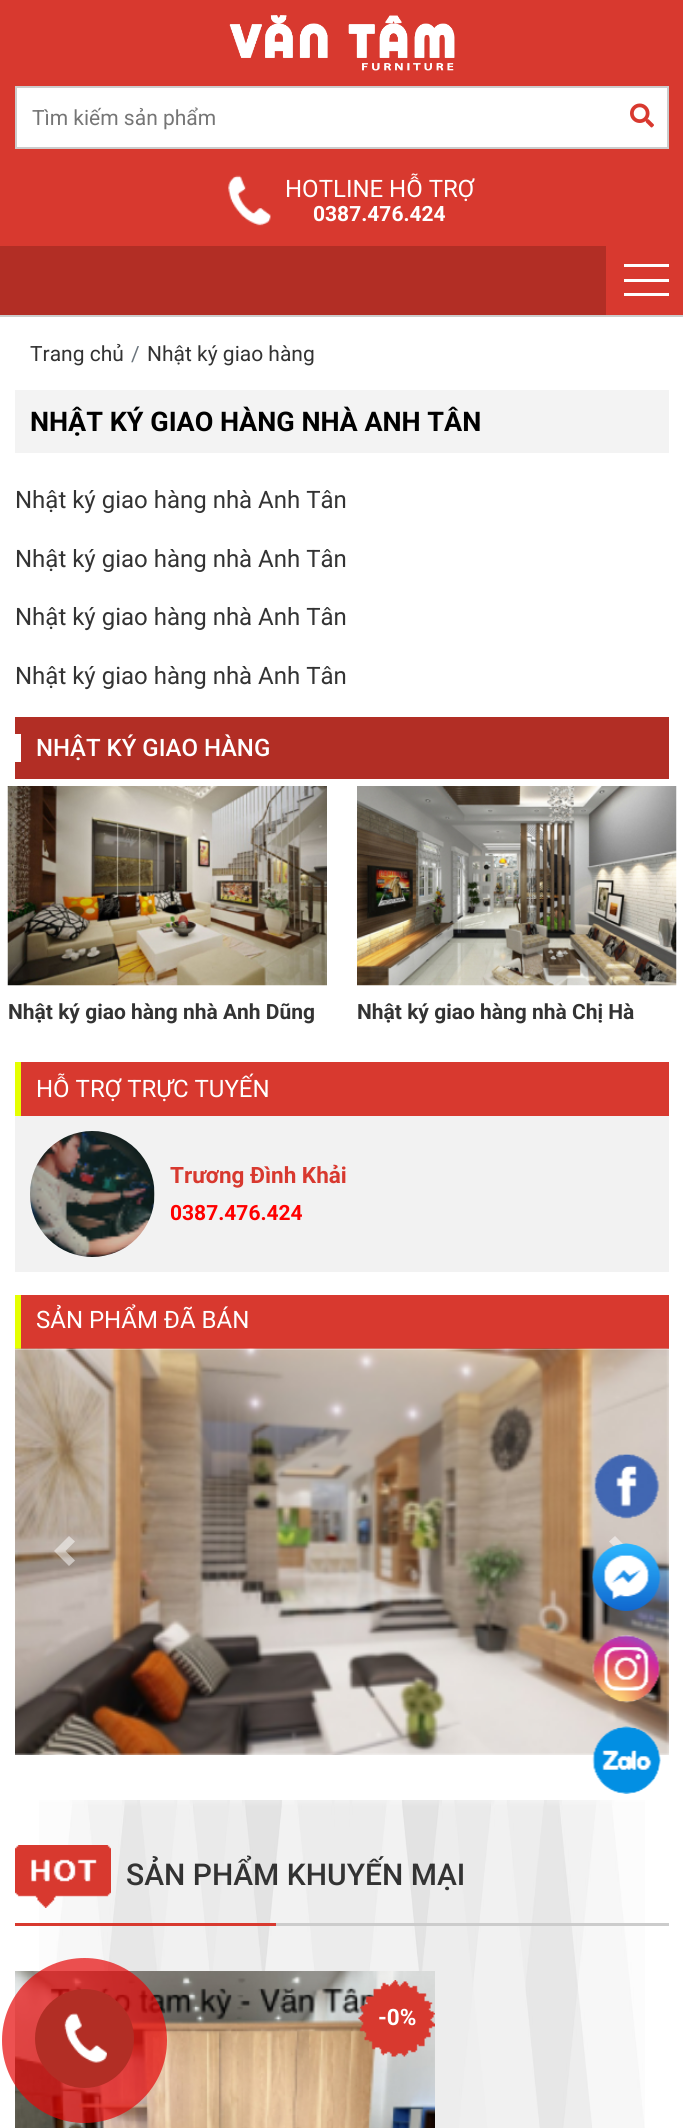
import math
import cairo


def paste(ctx, path, x, y, w, h):
	ctx.save()
	ctx.set_source_surface(cairo.ImageSurface.create_from_png(path), x, y)
	ctx.rectangle(x, y, w, h)
	ctx.fill()
	ctx.restore()

def draw(ctx):
	ctx.set_source_rgb(1, 1, 1)
	ctx.paint()
	ctx.set_source_rgb(0.847, 0.224, 0.184)
	ctx.rectangle(0, 0, 683, 246)
	ctx.fill()
	paste(ctx, 'media/1.png', 229, 15, 226, 56)
	ctx.set_source_rgb(1, 1, 1)
	ctx.rectangle(16, 87, 652, 61)
	ctx.fill_preserve()
	ctx.set_source_rgb(0.8, 0.8, 0.8)
	ctx.stroke()
	ctx.select_font_face('Roboto')
	ctx.set_font_size(21)
	ctx.set_source_rgb(0.459, 0.459, 0.459)
	ctx.move_to(32, 125)
	ctx.show_text('Tìm kiếm sản phẩm')
	paste(ctx, 'media/2.png', 630, 103, 24, 25)
	paste(ctx, 'media/3.png', 228, 175, 43, 51)
	ctx.set_font_size(24)
	ctx.set_source_rgb(1, 1, 1)
	ctx.move_to(285, 197)
	ctx.show_text('HOTLINE HỖ TRỢ')
	ctx.select_font_face('Roboto', cairo.FONT_SLANT_NORMAL, cairo.FONT_WEIGHT_BOLD)
	ctx.set_font_size(21)
	ctx.move_to(313, 221)
	ctx.show_text('0387.476.424')
	ctx.set_source_rgb(0.698, 0.18, 0.145)
	ctx.rectangle(0, 246, 606, 69)
	ctx.fill()
	ctx.set_source_rgb(0.847, 0.224, 0.184)
	ctx.rectangle(606, 246, 77, 69)
	ctx.fill()
	ctx.set_source_rgb(1, 1, 1)
	ctx.rectangle(624, 264, 45, 3)
	ctx.rectangle(624, 279, 45, 3)
	ctx.rectangle(624, 293, 45, 3)
	ctx.fill()
	ctx.set_source_rgb(0.8, 0.8, 0.8)
	ctx.rectangle(0, 315, 683, 2)
	ctx.fill()
	ctx.select_font_face('Roboto')
	ctx.set_source_rgb(0.2, 0.2, 0.2)
	ctx.move_to(30, 361)
	ctx.show_text('Trang chủ')
	ctx.set_source_rgb(0.424, 0.459, 0.49)
	ctx.move_to(131, 361)
	ctx.show_text('/')
	ctx.set_source_rgb(0.2, 0.2, 0.2)
	ctx.move_to(147, 361)
	ctx.show_text('Nhật ký giao hàng')
	ctx.set_source_rgb(0.953, 0.953, 0.953)
	ctx.rectangle(15, 390, 654, 63)
	ctx.fill()
	ctx.select_font_face('Roboto', cairo.FONT_SLANT_NORMAL, cairo.FONT_WEIGHT_BOLD)
	ctx.set_font_size(27)
	ctx.set_source_rgb(0, 0, 0)
	ctx.move_to(30, 431)
	ctx.show_text('NHẬT KÝ GIAO HÀNG NHÀ ANH TÂN')
	ctx.select_font_face('Roboto')
	ctx.set_font_size(24)
	ctx.set_source_rgb(0.2, 0.2, 0.2)
	for x, y, s in [
		(15, 508, 'Nhật ký giao hàng nhà Anh Tân'),
		(15, 567, 'Nhật ký giao hàng nhà Anh Tân'),
		(15, 625, 'Nhật ký giao hàng nhà Anh Tân'),
		(15, 684, 'Nhật ký giao hàng nhà Anh Tân'),
	]:
		ctx.move_to(x, y)
		ctx.show_text(s)
	ctx.set_source_rgb(0.698, 0.18, 0.145)
	ctx.rectangle(15, 717, 654, 62)
	ctx.fill()
	ctx.set_source_rgb(1, 1, 1)
	ctx.rectangle(15, 734, 6, 28)
	ctx.fill()
	ctx.select_font_face('Roboto Medium')
	ctx.move_to(36, 756)
	ctx.show_text('NHẬT KÝ GIAO HÀNG')
	paste(ctx, 'media/4.png', 7, 786, 320, 200)
	ctx.select_font_face('Roboto', cairo.FONT_SLANT_NORMAL, cairo.FONT_WEIGHT_BOLD)
	ctx.set_font_size(21)
	ctx.set_source_rgb(0.2, 0.2, 0.2)
	ctx.move_to(8, 1019)
	ctx.show_text('Nhật ký giao hàng nhà Anh Dũng')
	paste(ctx, 'media/5.png', 357, 786, 320, 200)
	ctx.move_to(357, 1019)
	ctx.show_text('Nhật ký giao hàng nhà Chị Hà')
	ctx.set_source_rgb(0.847, 0.224, 0.184)
	ctx.rectangle(21, 1062, 648, 54)
	ctx.fill()
	ctx.set_source_rgb(0.898, 1, 0)
	ctx.rectangle(15, 1062, 6, 54)
	ctx.fill()
	ctx.select_font_face('Roboto')
	ctx.set_font_size(24)
	ctx.set_source_rgb(1, 1, 1)
	ctx.move_to(36, 1097)
	ctx.show_text('HỖ TRỢ TRỰC TUYẾN')
	ctx.set_source_rgb(0.949, 0.949, 0.949)
	ctx.rectangle(15, 1116, 654, 156)
	ctx.fill()
	paste(ctx, 'media/6.png', 30, 1131, 125, 126)
	ctx.select_font_face('Roboto', cairo.FONT_SLANT_NORMAL, cairo.FONT_WEIGHT_BOLD)
	ctx.set_font_size(22.5)
	ctx.set_source_rgb(0.847, 0.224, 0.184)
	ctx.move_to(170, 1183)
	ctx.show_text('Trương Đình Khải')
	ctx.set_font_size(21)
	ctx.set_source_rgb(1, 0, 0)
	ctx.move_to(170, 1220)
	ctx.show_text('0387.476.424')
	ctx.set_source_rgb(0.847, 0.224, 0.184)
	ctx.rectangle(21, 1295, 648, 54)
	ctx.fill()
	ctx.set_source_rgb(0.898, 1, 0)
	ctx.rectangle(15, 1295, 6, 54)
	ctx.fill()
	ctx.select_font_face('Roboto')
	ctx.set_font_size(24)
	ctx.set_source_rgb(1, 1, 1)
	ctx.move_to(36, 1328)
	ctx.show_text('SẢN PHẨM ĐÃ BÁN')
	paste(ctx, 'media/7.png', 15, 1348, 654, 407)
	ctx.set_source_rgba(1, 1, 1, 0.5)
	ctx.new_path()
	ctx.move_to(69, 1536)
	ctx.line_to(54, 1551)
	ctx.line_to(69, 1566)
	ctx.line_to(75, 1560.5)
	ctx.line_to(65.5, 1551)
	ctx.line_to(75, 1541.5)
	ctx.close_path()
	ctx.fill()
	ctx.new_path()
	ctx.move_to(615, 1536)
	ctx.line_to(609, 1541.5)
	ctx.line_to(618.5, 1551)
	ctx.line_to(609, 1560.5)
	ctx.line_to(615, 1566)
	ctx.line_to(630, 1551)
	ctx.close_path()
	ctx.fill()
	paste(ctx, 'media/8.png', 39, 1800, 606, 328)
	ctx.set_source_rgb(0.8, 0.8, 0.8)
	ctx.rectangle(276, 1923, 393, 3)
	ctx.fill()
	paste(ctx, 'media/9.png', 15, 1845, 96, 63)
	ctx.select_font_face('Roboto Medium')
	ctx.set_font_size(30)
	ctx.set_source_rgb(0.2, 0.2, 0.2)
	ctx.move_to(126, 1885)
	ctx.show_text('SẢN PHẨM KHUYẾN MẠI')
	ctx.set_source_rgb(0.847, 0.224, 0.184)
	ctx.rectangle(15, 1923, 261, 3)
	ctx.fill()
	paste(ctx, 'media/10.png', 15, 1971, 420, 157)
	paste(ctx, 'media/11.png', 358, 1980, 77, 77)
	ctx.select_font_face('Roboto', cairo.FONT_SLANT_NORMAL, cairo.FONT_WEIGHT_BOLD)
	ctx.set_font_size(22.5)
	ctx.set_source_rgb(1, 1, 1)
	ctx.move_to(378, 2025)
	ctx.show_text('-0%')
	paste(ctx, 'media/12.png', 594, 1453, 66, 66)
	paste(ctx, 'media/13.png', 592, 1543, 69, 68)
	paste(ctx, 'media/14.png', 592, 1635, 69, 68)
	paste(ctx, 'media/15.png', 592, 1726, 69, 68)
	ctx.set_source_rgba(0.902, 0.031, 0.031, 0.7)
	ctx.arc(84.5, 2040.5, 82.5, 0, 2 * math.pi)
	ctx.fill()
	ctx.set_source_rgb(0.698, 0.18, 0.145)
	ctx.arc(84.5, 2038.5, 49.5, 0, 2 * math.pi)
	ctx.fill()
	paste(ctx, 'media/16.png', 64, 2013, 43, 50)


surface = cairo.ImageSurface(cairo.FORMAT_RGB24, 683, 2128)
ctx = cairo.Context(surface)
options = cairo.FontOptions()
options.set_hint_metrics(cairo.HINT_METRICS_OFF)
options.set_hint_style(cairo.HINT_STYLE_NONE)
ctx.set_font_options(options)
ctx.set_miter_limit(4)
draw(ctx)
surface.write_to_png('image.png')
